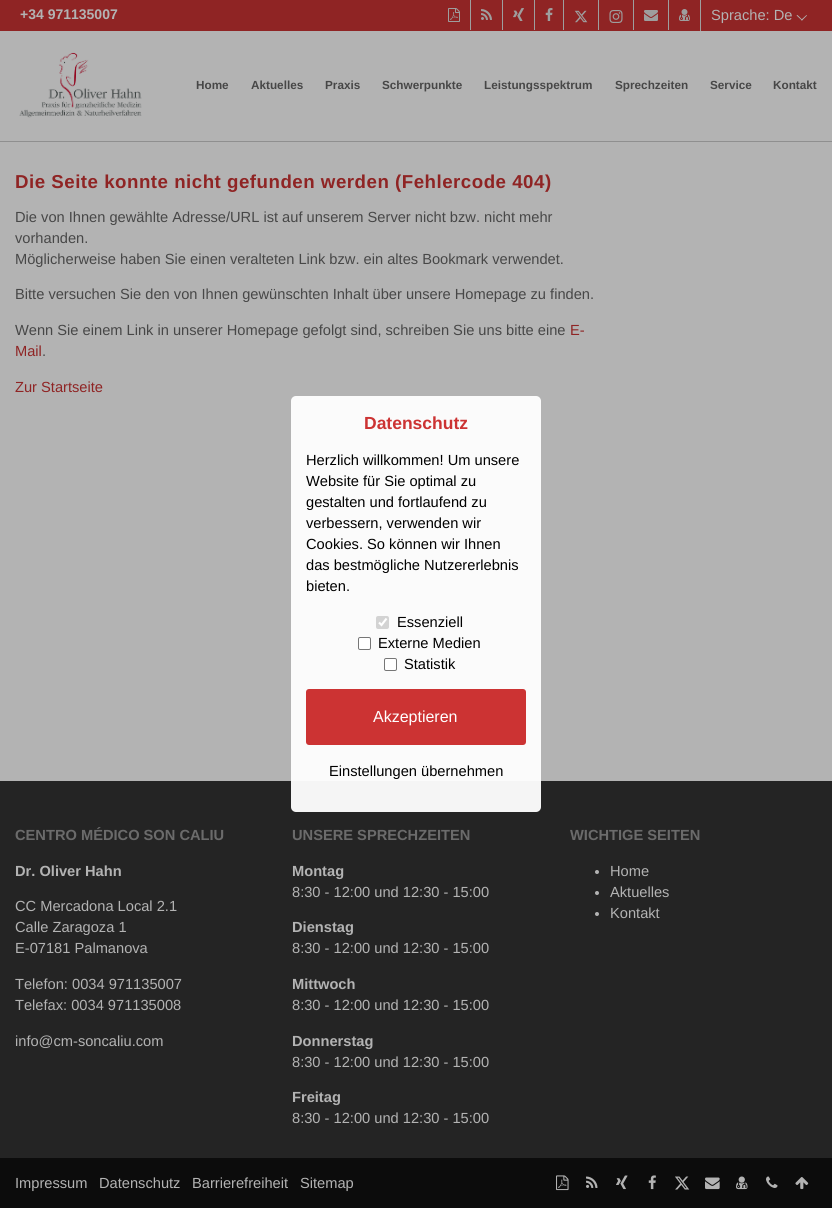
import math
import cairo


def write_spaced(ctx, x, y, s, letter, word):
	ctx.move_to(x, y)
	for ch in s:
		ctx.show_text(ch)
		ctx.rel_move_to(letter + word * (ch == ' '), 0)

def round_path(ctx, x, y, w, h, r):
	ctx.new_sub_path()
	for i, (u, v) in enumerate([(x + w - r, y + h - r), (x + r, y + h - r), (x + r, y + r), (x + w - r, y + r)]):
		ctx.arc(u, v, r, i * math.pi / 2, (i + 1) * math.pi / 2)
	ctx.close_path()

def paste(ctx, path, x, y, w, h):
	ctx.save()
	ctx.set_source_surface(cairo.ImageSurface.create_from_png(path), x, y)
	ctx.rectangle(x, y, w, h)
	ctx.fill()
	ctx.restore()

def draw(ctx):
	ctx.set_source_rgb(0.702, 0.702, 0.702)
	ctx.paint()
	ctx.set_source_rgb(0.561, 0.561, 0.561)
	ctx.rectangle(0, 141, 832, 1)
	ctx.fill()
	ctx.set_source_rgb(0.561, 0.141, 0.141)
	ctx.rectangle(0, 0, 832, 31)
	ctx.fill()
	ctx.select_font_face('Liberation Sans', cairo.FONT_SLANT_NORMAL, cairo.FONT_WEIGHT_BOLD)
	ctx.set_font_size(14)
	ctx.set_source_rgb(0.702, 0.702, 0.702)
	ctx.move_to(20, 19)
	ctx.show_text('+34 971135007')
	ctx.set_source_rgb(0.62, 0.62, 0.62)
	ctx.rectangle(470, 0, 1, 30)
	ctx.fill()
	paste(ctx, 'media/1.png', 448, 8, 12, 14)
	ctx.rectangle(502, 0, 1, 30)
	ctx.fill()
	paste(ctx, 'media/2.png', 481, 9, 11, 11)
	ctx.rectangle(534, 0, 1, 30)
	ctx.fill()
	paste(ctx, 'media/3.png', 513, 8, 11, 13)
	ctx.rectangle(563, 0, 1, 30)
	ctx.fill()
	paste(ctx, 'media/4.png', 545, 8, 8, 13)
	ctx.rectangle(598, 0, 1, 30)
	ctx.fill()
	paste(ctx, 'media/5.png', 574, 10, 14, 13)
	ctx.rectangle(633, 0, 1, 30)
	ctx.fill()
	paste(ctx, 'media/6.png', 609, 10, 14, 13)
	ctx.rectangle(668, 0, 1, 30)
	ctx.fill()
	paste(ctx, 'media/7.png', 644, 10, 14, 11)
	paste(ctx, 'media/8.png', 679, 9, 11, 12)
	ctx.rectangle(700, 0, 1, 31)
	ctx.fill()
	ctx.select_font_face('Liberation Sans')
	ctx.set_font_size(14.65)
	ctx.set_source_rgb(0.702, 0.702, 0.702)
	ctx.move_to(711, 20)
	ctx.show_text('Sprache: De')
	ctx.new_path()
	ctx.move_to(802, 20.5)
	ctx.line_to(796.5, 15.5)
	ctx.line_to(797.5, 15)
	ctx.line_to(802.5, 20)
	ctx.close_path()
	ctx.fill()
	ctx.new_path()
	ctx.move_to(802, 20.5)
	ctx.line_to(801, 20)
	ctx.line_to(806.5, 15)
	ctx.line_to(807, 15.5)
	ctx.close_path()
	ctx.fill()
	paste(ctx, 'media/9.png', 19, 52, 123, 66)
	ctx.select_font_face('Liberation Sans', cairo.FONT_SLANT_NORMAL, cairo.FONT_WEIGHT_BOLD)
	ctx.set_font_size(11.75)
	ctx.set_source_rgb(0.278, 0.278, 0.278)
	for x, y, s in [
		(196, 89, 'Home'),
		(251, 89, 'Aktuelles'),
		(325, 89, 'Praxis'),
		(382, 89, 'Schwerpunkte'),
		(484, 89, 'Leistungsspektrum'),
		(615, 89, 'Sprechzeiten'),
		(710, 89, 'Service'),
		(773, 89, 'Kontakt'),
	]:
		ctx.move_to(x, y)
		ctx.show_text(s)
	ctx.set_font_size(18.7)
	ctx.set_source_rgb(0.561, 0.141, 0.141)
	write_spaced(ctx, 15, 188, 'Die Seite konnte nicht gefunden werden (Fehlercode 404)', 0.5, 0)
	ctx.select_font_face('Liberation Sans')
	ctx.set_font_size(14.65)
	ctx.set_source_rgb(0.278, 0.278, 0.278)
	for x, y, s in [
		(15, 222, 'Die von Ihnen gewählte Adresse/URL ist auf unserem Server nicht bzw. nicht mehr'),
		(15, 243, 'vorhanden.'),
		(15, 264, 'Möglicherweise haben Sie einen veralteten Link bzw. ein altes Bookmark verwendet.'),
		(15, 299, 'Bitte versuchen Sie den von Ihnen gewünschten Inhalt über unsere Homepage zu finden.'),
		(15, 335, 'Wenn Sie einem Link in unserer Homepage gefolgt sind, schreiben Sie uns bitte eine'),
	]:
		ctx.move_to(x, y)
		ctx.show_text(s)
	ctx.set_source_rgb(0.561, 0.141, 0.141)
	ctx.move_to(570, 335)
	ctx.show_text('E-')
	ctx.move_to(15, 356)
	ctx.show_text('Mail')
	ctx.set_source_rgb(0.278, 0.278, 0.278)
	ctx.move_to(42, 356)
	ctx.show_text('.')
	ctx.set_source_rgb(0.561, 0.141, 0.141)
	ctx.move_to(15, 392)
	ctx.show_text('Zur Startseite')
	ctx.set_source_rgb(0.141, 0.141, 0.141)
	ctx.rectangle(0, 781, 832, 377)
	ctx.fill()
	ctx.select_font_face('Liberation Sans', cairo.FONT_SLANT_NORMAL, cairo.FONT_WEIGHT_BOLD)
	ctx.set_source_rgb(0.42, 0.42, 0.42)
	ctx.move_to(15, 840)
	ctx.show_text('CENTRO MÉDICO SON CALIU')
	ctx.set_source_rgb(0.702, 0.702, 0.702)
	ctx.move_to(15, 876)
	ctx.show_text('Dr. Oliver Hahn')
	ctx.select_font_face('Liberation Sans')
	for x, y, s in [
		(15, 911, 'CC Mercadona Local 2.1'),
		(15, 932, 'Calle Zaragoza 1'),
		(15, 953, 'E-07181 Palmanova'),
		(15, 989, 'Telefon: 0034 971135007'),
		(15, 1010, 'Telefax: 0034 971135008'),
		(15, 1046, 'info@cm-soncaliu.com'),
	]:
		ctx.move_to(x, y)
		ctx.show_text(s)
	ctx.select_font_face('Liberation Sans', cairo.FONT_SLANT_NORMAL, cairo.FONT_WEIGHT_BOLD)
	ctx.set_source_rgb(0.42, 0.42, 0.42)
	ctx.move_to(292, 840)
	ctx.show_text('UNSERE SPRECHZEITEN')
	ctx.set_source_rgb(0.702, 0.702, 0.702)
	ctx.move_to(292, 876)
	ctx.show_text('Montag')
	ctx.select_font_face('Liberation Sans')
	ctx.move_to(292, 897)
	ctx.show_text('8:30 - 12:00 und 12:30 - 15:00')
	ctx.select_font_face('Liberation Sans', cairo.FONT_SLANT_NORMAL, cairo.FONT_WEIGHT_BOLD)
	ctx.move_to(292, 932)
	ctx.show_text('Dienstag')
	ctx.select_font_face('Liberation Sans')
	ctx.move_to(292, 953)
	ctx.show_text('8:30 - 12:00 und 12:30 - 15:00')
	ctx.select_font_face('Liberation Sans', cairo.FONT_SLANT_NORMAL, cairo.FONT_WEIGHT_BOLD)
	ctx.move_to(292, 989)
	ctx.show_text('Mittwoch')
	ctx.select_font_face('Liberation Sans')
	ctx.move_to(292, 1010)
	ctx.show_text('8:30 - 12:00 und 12:30 - 15:00')
	ctx.select_font_face('Liberation Sans', cairo.FONT_SLANT_NORMAL, cairo.FONT_WEIGHT_BOLD)
	ctx.move_to(292, 1046)
	ctx.show_text('Donnerstag')
	ctx.select_font_face('Liberation Sans')
	ctx.move_to(292, 1067)
	ctx.show_text('8:30 - 12:00 und 12:30 - 15:00')
	ctx.select_font_face('Liberation Sans', cairo.FONT_SLANT_NORMAL, cairo.FONT_WEIGHT_BOLD)
	ctx.move_to(292, 1102)
	ctx.show_text('Freitag')
	ctx.select_font_face('Liberation Sans')
	ctx.move_to(292, 1123)
	ctx.show_text('8:30 - 12:00 und 12:30 - 15:00')
	ctx.select_font_face('Liberation Sans', cairo.FONT_SLANT_NORMAL, cairo.FONT_WEIGHT_BOLD)
	ctx.set_source_rgb(0.42, 0.42, 0.42)
	ctx.move_to(570, 840)
	ctx.show_text('WICHTIGE SEITEN')
	ctx.set_source_rgb(0.702, 0.702, 0.702)
	ctx.new_path()
	ctx.arc(597, 872, 2, 0, 2 * math.pi)
	ctx.fill()
	ctx.select_font_face('Liberation Sans')
	ctx.move_to(610, 876)
	ctx.show_text('Home')
	ctx.new_path()
	ctx.arc(597, 893, 2, 0, 2 * math.pi)
	ctx.fill()
	ctx.move_to(610, 897)
	ctx.show_text('Aktuelles')
	ctx.new_path()
	ctx.arc(597, 914, 2, 0, 2 * math.pi)
	ctx.fill()
	ctx.move_to(610, 918)
	ctx.show_text('Kontakt')
	ctx.set_source_rgb(0.047, 0.047, 0.047)
	ctx.rectangle(0, 1158, 832, 50)
	ctx.fill()
	ctx.set_source_rgb(0.702, 0.702, 0.702)
	for x, y, s in [
		(15, 1188, 'Impressum'),
		(99, 1188, 'Datenschutz'),
		(192, 1188, 'Barrierefreiheit'),
		(300, 1188, 'Sitemap'),
	]:
		ctx.move_to(x, y)
		ctx.show_text(s)
	paste(ctx, 'media/10.png', 556, 1175, 13, 16)
	paste(ctx, 'media/11.png', 586, 1176, 12, 12)
	paste(ctx, 'media/12.png', 616, 1175, 12, 15)
	paste(ctx, 'media/13.png', 648, 1175, 8, 15)
	paste(ctx, 'media/14.png', 675, 1176, 15, 14)
	paste(ctx, 'media/15.png', 705, 1177, 15, 13)
	paste(ctx, 'media/16.png', 736, 1176, 12, 14)
	paste(ctx, 'media/17.png', 766, 1176, 12, 12)
	paste(ctx, 'media/18.png', 795, 1177, 14, 13)
	ctx.set_source_rgba(1, 1, 1, 0.95)
	round_path(ctx, 291, 396, 250, 416, 5)
	ctx.fill()
	ctx.select_font_face('Liberation Sans', cairo.FONT_SLANT_NORMAL, cairo.FONT_WEIGHT_BOLD)
	ctx.set_font_size(17.5)
	ctx.set_source_rgb(0.8, 0.2, 0.2)
	ctx.move_to(364, 429)
	ctx.show_text('Datenschutz')
	ctx.select_font_face('Liberation Sans')
	ctx.set_font_size(14.65)
	ctx.set_source_rgb(0, 0, 0)
	for x, y, s in [
		(306, 465, 'Herzlich willkommen! Um unsere'),
		(306, 486, 'Website für Sie optimal zu'),
		(306, 507, 'gestalten und fortlaufend zu'),
		(306, 528, 'verbessern, verwenden wir'),
		(306, 549, 'Cookies. So können wir Ihnen'),
		(306, 570, 'das bestmögliche Nutzererlebnis'),
		(306, 591, 'bieten.'),
	]:
		ctx.move_to(x, y)
		ctx.show_text(s)
	ctx.set_source_rgb(0.827, 0.827, 0.827)
	round_path(ctx, 376, 616, 13, 13, 2)
	ctx.fill()
	ctx.new_path()
	ctx.move_to(379, 622.5)
	ctx.line_to(381.5, 625)
	ctx.line_to(386.5, 618.5)
	ctx.set_source_rgb(1, 1, 1)
	ctx.set_line_width(2.1)
	ctx.stroke()
	ctx.set_source_rgb(0, 0, 0)
	ctx.move_to(397, 627)
	ctx.show_text('Essenziell')
	ctx.set_source_rgb(1, 1, 1)
	round_path(ctx, 358.5, 637.5, 12, 12, 1.5)
	ctx.fill_preserve()
	ctx.set_source_rgb(0.463, 0.463, 0.463)
	ctx.set_line_width(1)
	ctx.stroke()
	ctx.set_source_rgb(0, 0, 0)
	ctx.move_to(378, 648)
	ctx.show_text('Externe Medien')
	ctx.set_source_rgb(1, 1, 1)
	round_path(ctx, 384.5, 658.5, 12, 12, 1.5)
	ctx.fill_preserve()
	ctx.set_source_rgb(0.463, 0.463, 0.463)
	ctx.stroke()
	ctx.set_source_rgb(0, 0, 0)
	ctx.move_to(404, 669)
	ctx.show_text('Statistik')
	ctx.set_source_rgb(0.8, 0.2, 0.2)
	round_path(ctx, 306, 689, 220, 56, 3)
	ctx.fill()
	ctx.set_font_size(16)
	ctx.set_source_rgb(1, 1, 1)
	ctx.move_to(373, 722)
	ctx.show_text('Akzeptieren')
	ctx.set_font_size(14.65)
	ctx.set_source_rgb(0, 0, 0)
	ctx.move_to(329, 776)
	ctx.show_text('Einstellungen übernehmen')


surface = cairo.ImageSurface(cairo.FORMAT_RGB24, 832, 1208)
ctx = cairo.Context(surface)
options = cairo.FontOptions()
options.set_hint_metrics(cairo.HINT_METRICS_OFF)
options.set_hint_style(cairo.HINT_STYLE_NONE)
ctx.set_font_options(options)
ctx.set_miter_limit(4)
draw(ctx)
surface.write_to_png('image.png')
